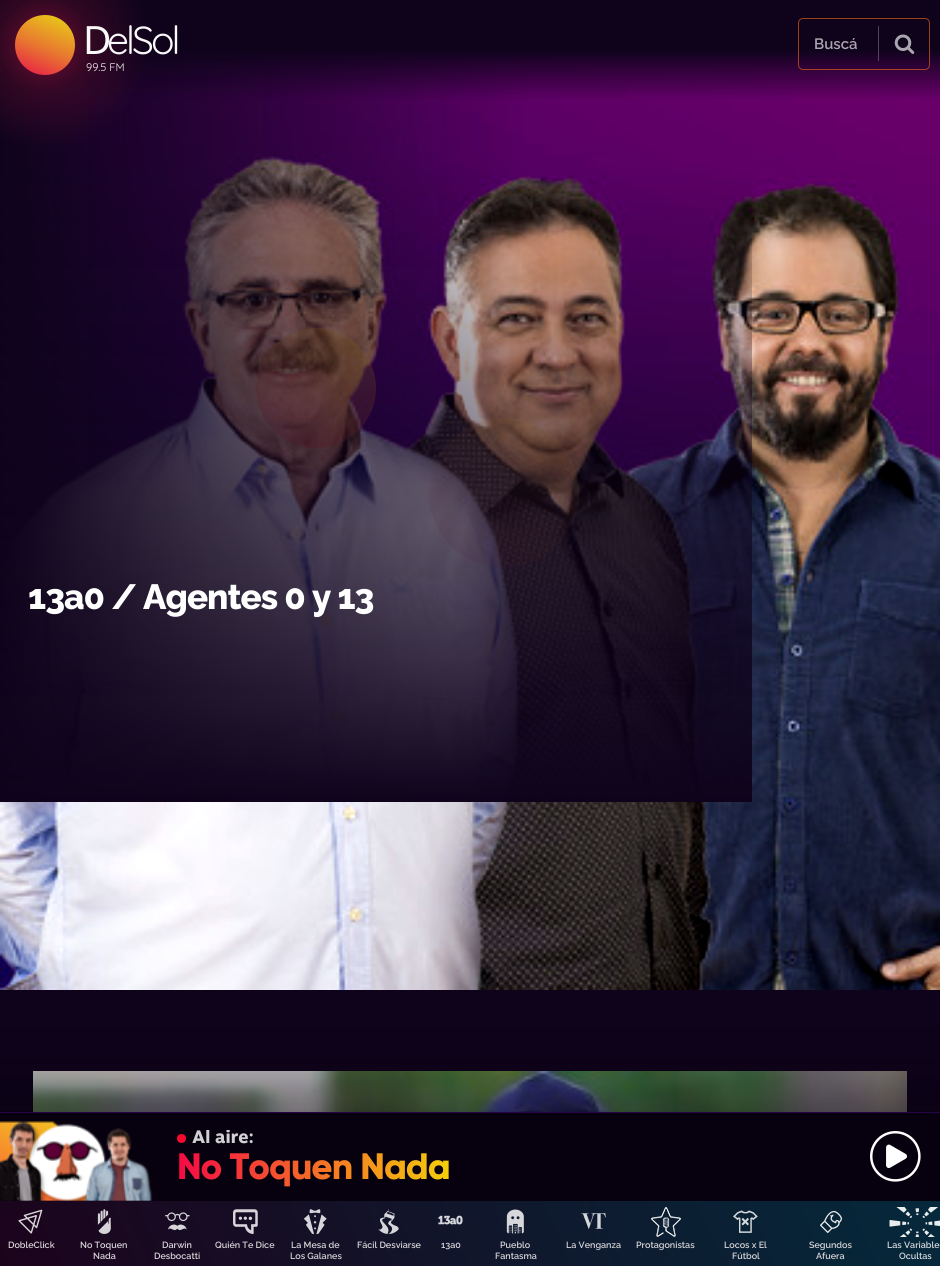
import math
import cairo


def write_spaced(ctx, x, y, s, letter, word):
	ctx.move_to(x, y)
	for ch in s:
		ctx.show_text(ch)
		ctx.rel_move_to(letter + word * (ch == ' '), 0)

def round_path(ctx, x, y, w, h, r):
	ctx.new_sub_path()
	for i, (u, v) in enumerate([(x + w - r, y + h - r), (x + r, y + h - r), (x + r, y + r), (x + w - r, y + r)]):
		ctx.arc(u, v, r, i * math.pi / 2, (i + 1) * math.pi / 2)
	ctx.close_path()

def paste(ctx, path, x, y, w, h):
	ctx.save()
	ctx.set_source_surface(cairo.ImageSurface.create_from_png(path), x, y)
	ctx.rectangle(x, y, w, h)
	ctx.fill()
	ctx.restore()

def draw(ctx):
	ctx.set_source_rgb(1, 1, 1)
	ctx.paint()
	ctx.set_source_rgb(0.059, 0.012, 0.11)
	ctx.rectangle(0, 0, 940, 50)
	ctx.fill()
	paste(ctx, 'media/2.png', 0, 50, 940, 940)
	gradient = cairo.RadialGradient(45, 45, 0, 45, 45, 105)
	gradient.add_color_stop_rgba(0, 0.91, 0.082, 0.29, 0.56)
	gradient.add_color_stop_rgba(0.45, 0.478, 0.067, 0.184, 0.31)
	gradient.add_color_stop_rgba(1, 0.478, 0.067, 0.184, 0)
	ctx.set_source(gradient)
	ctx.rectangle(0, 0, 146, 146)
	ctx.fill()
	gradient = cairo.LinearGradient(30, 81, 60, 9)
	gradient.add_color_stop_rgba(0, 0.91, 0.082, 0.29, 1)
	gradient.add_color_stop_rgba(0.45, 0.91, 0.463, 0.188, 1)
	gradient.add_color_stop_rgba(1, 0.91, 0.839, 0.082, 1)
	ctx.set_source(gradient)
	ctx.arc(45, 45, 30, 0, 2 * math.pi)
	ctx.fill()
	ctx.select_font_face('Noto Sans')
	ctx.set_font_size(39)
	ctx.set_source_rgb(0.976, 0.973, 0.973)
	write_spaced(ctx, 83, 54, 'D', -3, 0)
	ctx.select_font_face('Quicksand')
	write_spaced(ctx, 107, 54, 'elSol', -3, 0)
	ctx.set_font_size(11)
	ctx.move_to(86, 71)
	ctx.show_text('99.5 FM')
	round_path(ctx, 798.5, 18.5, 131, 51, 4.5)
	ctx.set_source_rgba(0.91, 0.384, 0.082, 0.65)
	ctx.set_line_width(1)
	ctx.stroke()
	ctx.select_font_face('Raleway SemiBold')
	ctx.set_font_size(15)
	ctx.set_source_rgb(0.667, 0.651, 0.686)
	ctx.move_to(814, 49)
	ctx.show_text('Buscá')
	ctx.set_source_rgba(1, 1, 1, 0.26)
	ctx.rectangle(878, 26, 1, 35)
	ctx.fill()
	paste(ctx, 'media/1.png', 894, 34, 21, 20)
	ctx.select_font_face('Raleway ExtraBold')
	ctx.set_font_size(35)
	ctx.set_source_rgb(1, 1, 1)
	write_spaced(ctx, 28, 609, '13a0 / Agentes 0 y 13', -1, 0)
	gradient = cairo.LinearGradient(470, 990, 470, 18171)
	gradient.add_color_stop_rgba(0, 0.059, 0.012, 0.11, 1)
	gradient.add_color_stop_rgba(0.5, 0.012, 0.012, 0.11, 1)
	gradient.add_color_stop_rgba(1, 0.012, 0.012, 0.11, 1)
	ctx.set_source(gradient)
	ctx.rectangle(0, 990, 940, 122)
	ctx.fill()
	paste(ctx, 'media/3.png', 33, 1071, 874, 41)
	gradient = cairo.LinearGradient(470, 1071, 470, 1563)
	gradient.add_color_stop_rgba(0, 0, 0, 0, 0.04)
	gradient.add_color_stop_rgba(1, 0, 0, 0, 0)
	ctx.set_source(gradient)
	ctx.rectangle(33, 1071, 874, 41)
	ctx.fill()
	ctx.set_source_rgb(0.031, 0.004, 0.059)
	ctx.rectangle(0, 1113, 940, 88)
	ctx.fill()
	gradient = cairo.LinearGradient(470, 986, 470, 1112)
	gradient.add_color_stop_rgba(0, 0.031, 0.004, 0.059, 0)
	gradient.add_color_stop_rgba(1, 0.031, 0.004, 0.059, 0.51)
	ctx.set_source(gradient)
	ctx.rectangle(0, 1026, 940, 86)
	ctx.fill()
	ctx.set_source_rgb(0.157, 0.016, 0.31)
	ctx.rectangle(0, 1112, 940, 1)
	ctx.fill()
	paste(ctx, 'media/4.png', 0, 1121, 153, 80)
	ctx.set_source_rgb(0.961, 0.039, 0.192)
	ctx.arc(181.5, 1138.5, 4.5, 0, 2 * math.pi)
	ctx.fill()
	ctx.save()
	ctx.rectangle(177, 1130, 674, 17)
	ctx.clip()
	ctx.select_font_face('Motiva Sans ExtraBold')
	ctx.set_font_size(18)
	ctx.set_source_rgb(0.816, 0.812, 0.82)
	ctx.move_to(192, 1143)
	ctx.show_text('Al aire:')
	ctx.restore()
	ctx.select_font_face('Gilroy ExtraBold')
	ctx.set_font_size(36.75)
	gradient = cairo.LinearGradient(177, 1167, 449, 1167)
	gradient.add_color_stop_rgba(0, 0.961, 0.039, 0.271, 1)
	gradient.add_color_stop_rgba(1, 0.961, 0.808, 0.039, 1)
	ctx.set_source(gradient)
	write_spaced(ctx, 177, 1179, 'No Toquen Nada', -1, 0)
	paste(ctx, 'media/5.png', 870, 1131, 51, 51)
	gradient = cairo.LinearGradient(60, 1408, 880, 1059)
	gradient.add_color_stop_rgba(0, 0.11, 0.012, 0.11, 1)
	gradient.add_color_stop_rgba(1, 0.02, 0.161, 0.231, 1)
	ctx.set_source(gradient)
	ctx.rectangle(0, 1201, 940, 65)
	ctx.fill()
	paste(ctx, 'media/6.png', 18, 1209, 25, 25)
	ctx.select_font_face('Raleway SemiBold')
	ctx.set_font_size(9)
	ctx.set_source_rgb(0.843, 0.831, 0.847)
	ctx.move_to(8, 1248)
	ctx.show_text('DobleClick')
	paste(ctx, 'media/7.png', 97, 1209, 14, 25)
	ctx.move_to(80, 1248)
	ctx.show_text('No Toquen')
	ctx.move_to(93, 1259)
	ctx.show_text('Nada')
	paste(ctx, 'media/8.png', 165, 1212, 25, 19)
	ctx.move_to(162, 1248)
	ctx.show_text('Darwin')
	ctx.move_to(154, 1259)
	ctx.show_text('Desbocatti')
	paste(ctx, 'media/9.png', 233, 1209, 25, 25)
	ctx.move_to(215, 1248)
	ctx.show_text('Quién Te Dice')
	paste(ctx, 'media/10.png', 303, 1209, 24, 25)
	ctx.move_to(291, 1248)
	ctx.show_text('La Mesa de')
	ctx.move_to(290, 1259)
	ctx.show_text('Los Galanes')
	paste(ctx, 'media/11.png', 378, 1209, 21, 25)
	ctx.move_to(357, 1248)
	ctx.show_text('Fácil Desviarse')
	paste(ctx, 'media/12.png', 438, 1215, 25, 10)
	ctx.move_to(441, 1248)
	ctx.show_text('13a0')
	paste(ctx, 'media/13.png', 506, 1209, 18, 25)
	ctx.move_to(500, 1248)
	ctx.show_text('Pueblo')
	ctx.move_to(495, 1259)
	ctx.show_text('Fantasma')
	paste(ctx, 'media/14.png', 581, 1213, 25, 16)
	ctx.move_to(566, 1248)
	ctx.show_text('La Venganza')
	paste(ctx, 'media/15.png', 651, 1207, 30, 30)
	ctx.move_to(636, 1248)
	ctx.show_text('Protagonistas')
	paste(ctx, 'media/16.png', 733, 1210, 25, 23)
	ctx.move_to(724, 1248)
	ctx.show_text('Locos x El')
	ctx.move_to(732, 1259)
	ctx.show_text('Fútbol')
	paste(ctx, 'media/17.png', 820, 1211, 22, 22)
	ctx.move_to(809, 1248)
	ctx.show_text('Segundos')
	ctx.move_to(816, 1259)
	ctx.show_text('Afuera')
	paste(ctx, 'media/18.png', 889, 1207, 51, 30)
	ctx.set_source_rgb(0.835, 0.855, 0.867)
	ctx.move_to(887, 1248)
	ctx.show_text('Las Variable')
	ctx.move_to(899, 1259)
	ctx.show_text('Ocultas')


surface = cairo.ImageSurface(cairo.FORMAT_RGB24, 940, 1266)
ctx = cairo.Context(surface)
options = cairo.FontOptions()
options.set_hint_metrics(cairo.HINT_METRICS_OFF)
options.set_hint_style(cairo.HINT_STYLE_NONE)
ctx.set_font_options(options)
ctx.set_miter_limit(4)
draw(ctx)
surface.write_to_png('image.png')
